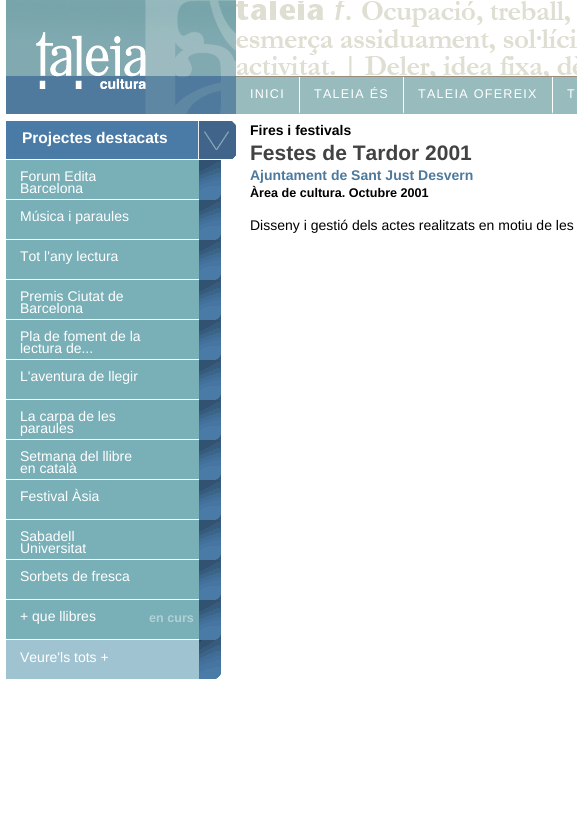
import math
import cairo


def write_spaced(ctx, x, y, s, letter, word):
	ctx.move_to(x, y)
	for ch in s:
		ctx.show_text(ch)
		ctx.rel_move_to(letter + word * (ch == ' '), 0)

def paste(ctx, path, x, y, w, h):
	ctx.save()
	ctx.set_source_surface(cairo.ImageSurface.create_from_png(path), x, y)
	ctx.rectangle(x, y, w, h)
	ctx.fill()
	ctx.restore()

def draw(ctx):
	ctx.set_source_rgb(1, 1, 1)
	ctx.paint()
	paste(ctx, 'media/1.png', 6, 0, 571, 76)
	paste(ctx, 'media/2.png', 6, 76, 230, 38)
	ctx.set_source_rgb(0.596, 0.733, 0.741)
	ctx.rectangle(236, 77, 341, 37)
	ctx.fill()
	ctx.set_source_rgb(0.608, 0.549, 0.482)
	ctx.rectangle(236, 76, 341, 1)
	ctx.fill()
	ctx.set_source_rgb(1, 1, 1)
	ctx.new_path()
	ctx.move_to(300, 77)
	ctx.line_to(300, 115)
	ctx.line_to(299, 112)
	ctx.line_to(299, 77)
	ctx.close_path()
	ctx.fill()
	ctx.save()
	ctx.rectangle(6, 76, 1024, 38)
	ctx.clip()
	ctx.set_source_rgb(0.596, 0.733, 0.741)
	ctx.new_path()
	ctx.move_to(300, 115)
	ctx.line_to(236, 115)
	ctx.line_to(236, 112)
	ctx.line_to(299, 112)
	ctx.close_path()
	ctx.fill()
	ctx.restore()
	ctx.select_font_face('Liberation Sans')
	ctx.set_font_size(12.6)
	write_spaced(ctx, 250, 98, 'INICI', 1.25, 0)
	ctx.new_path()
	ctx.move_to(404, 77)
	ctx.line_to(404, 115)
	ctx.line_to(403, 112)
	ctx.line_to(403, 77)
	ctx.close_path()
	ctx.fill()
	ctx.save()
	ctx.rectangle(6, 76, 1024, 38)
	ctx.clip()
	ctx.set_source_rgb(0.596, 0.733, 0.741)
	ctx.new_path()
	ctx.move_to(404, 115)
	ctx.line_to(300, 115)
	ctx.line_to(300, 112)
	ctx.line_to(403, 112)
	ctx.close_path()
	ctx.fill()
	ctx.restore()
	write_spaced(ctx, 314, 98, 'TALEIA ÉS', 1.25, 0)
	ctx.new_path()
	ctx.move_to(553, 77)
	ctx.line_to(553, 115)
	ctx.line_to(552, 112)
	ctx.line_to(552, 77)
	ctx.close_path()
	ctx.fill()
	ctx.save()
	ctx.rectangle(6, 76, 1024, 38)
	ctx.clip()
	ctx.set_source_rgb(0.596, 0.733, 0.741)
	ctx.new_path()
	ctx.move_to(553, 115)
	ctx.line_to(404, 115)
	ctx.line_to(404, 112)
	ctx.line_to(552, 112)
	ctx.close_path()
	ctx.fill()
	ctx.restore()
	write_spaced(ctx, 418, 98, 'TALEIA OFEREIX', 1.25, 0)
	write_spaced(ctx, 567, 98, 'T', 1.25, 0)
	ctx.set_source_rgb(0.29, 0.482, 0.655)
	ctx.rectangle(6, 121, 192, 38)
	ctx.fill()
	ctx.set_source_rgb(0.933, 0.933, 0.933)
	ctx.rectangle(198, 121, 1, 39)
	ctx.fill()
	ctx.set_source_rgb(1, 1, 1)
	ctx.rectangle(198, 159, 1, 1)
	ctx.fill()
	ctx.select_font_face('Liberation Sans', cairo.FONT_SLANT_NORMAL, cairo.FONT_WEIGHT_BOLD)
	ctx.set_font_size(15.5)
	ctx.move_to(22, 143)
	ctx.show_text('Projectes destacats')
	paste(ctx, 'media/3.png', 199, 121, 37, 38)
	ctx.set_source_rgb(0.475, 0.686, 0.718)
	ctx.rectangle(6, 160, 193, 39)
	ctx.fill()
	paste(ctx, 'media/4.png', 6, 160, 230, 40)
	ctx.select_font_face('Liberation Sans')
	ctx.set_font_size(14)
	ctx.set_source_rgb(1, 1, 1)
	ctx.move_to(20, 181)
	ctx.show_text('Forum Edita')
	ctx.move_to(20, 193)
	ctx.show_text('Barcelona')
	ctx.set_source_rgb(0.475, 0.686, 0.718)
	ctx.rectangle(6, 200, 193, 39)
	ctx.fill()
	paste(ctx, 'media/4.png', 6, 200, 230, 40)
	ctx.set_source_rgb(1, 1, 1)
	ctx.move_to(20, 221)
	ctx.show_text('Música i paraules')
	ctx.set_source_rgb(0.475, 0.686, 0.718)
	ctx.rectangle(6, 240, 193, 39)
	ctx.fill()
	paste(ctx, 'media/4.png', 6, 240, 230, 40)
	ctx.set_source_rgb(1, 1, 1)
	ctx.move_to(20, 261)
	ctx.show_text('Tot l\'any lectura')
	ctx.set_source_rgb(0.475, 0.686, 0.718)
	ctx.rectangle(6, 280, 193, 39)
	ctx.fill()
	paste(ctx, 'media/4.png', 6, 280, 230, 40)
	ctx.set_source_rgb(1, 1, 1)
	ctx.move_to(20, 301)
	ctx.show_text('Premis Ciutat de')
	ctx.move_to(20, 313)
	ctx.show_text('Barcelona')
	ctx.set_source_rgb(0.475, 0.686, 0.718)
	ctx.rectangle(6, 320, 193, 39)
	ctx.fill()
	paste(ctx, 'media/4.png', 6, 320, 230, 40)
	ctx.set_source_rgb(1, 1, 1)
	ctx.move_to(20, 341)
	ctx.show_text('Pla de foment de la')
	ctx.move_to(20, 353)
	ctx.show_text('lectura de...')
	ctx.set_source_rgb(0.475, 0.686, 0.718)
	ctx.rectangle(6, 360, 193, 39)
	ctx.fill()
	paste(ctx, 'media/4.png', 6, 360, 230, 40)
	ctx.set_source_rgb(1, 1, 1)
	ctx.move_to(20, 381)
	ctx.show_text('L\'aventura de llegir')
	ctx.set_source_rgb(0.475, 0.686, 0.718)
	ctx.rectangle(6, 400, 193, 39)
	ctx.fill()
	paste(ctx, 'media/4.png', 6, 400, 230, 40)
	ctx.set_source_rgb(1, 1, 1)
	ctx.move_to(20, 421)
	ctx.show_text('La carpa de les')
	ctx.move_to(20, 433)
	ctx.show_text('paraules')
	ctx.set_source_rgb(0.475, 0.686, 0.718)
	ctx.rectangle(6, 440, 193, 39)
	ctx.fill()
	paste(ctx, 'media/4.png', 6, 440, 230, 40)
	ctx.set_source_rgb(1, 1, 1)
	ctx.move_to(20, 461)
	ctx.show_text('Setmana del llibre')
	ctx.move_to(20, 473)
	ctx.show_text('en català')
	ctx.set_source_rgb(0.475, 0.686, 0.718)
	ctx.rectangle(6, 480, 193, 39)
	ctx.fill()
	paste(ctx, 'media/4.png', 6, 480, 230, 40)
	ctx.set_source_rgb(1, 1, 1)
	ctx.move_to(20, 501)
	ctx.show_text('Festival Àsia')
	ctx.set_source_rgb(0.475, 0.686, 0.718)
	ctx.rectangle(6, 520, 193, 39)
	ctx.fill()
	paste(ctx, 'media/4.png', 6, 520, 230, 40)
	ctx.set_source_rgb(1, 1, 1)
	ctx.move_to(20, 541)
	ctx.show_text('Sabadell')
	ctx.move_to(20, 553)
	ctx.show_text('Universitat')
	ctx.set_source_rgb(0.475, 0.686, 0.718)
	ctx.rectangle(6, 560, 193, 39)
	ctx.fill()
	paste(ctx, 'media/4.png', 6, 560, 230, 40)
	ctx.set_source_rgb(1, 1, 1)
	ctx.move_to(20, 581)
	ctx.show_text('Sorbets de fresca')
	ctx.set_source_rgb(0.475, 0.686, 0.718)
	ctx.rectangle(6, 600, 193, 39)
	ctx.fill()
	paste(ctx, 'media/4.png', 6, 600, 230, 40)
	ctx.set_source_rgb(1, 1, 1)
	ctx.move_to(20, 621)
	ctx.show_text('+ que llibres')
	ctx.select_font_face('Liberation Sans', cairo.FONT_SLANT_NORMAL, cairo.FONT_WEIGHT_BOLD)
	ctx.set_font_size(12.6)
	ctx.set_source_rgb(0.686, 0.82, 0.839)
	ctx.move_to(149, 622)
	ctx.show_text('en curs')
	ctx.set_source_rgb(0.627, 0.765, 0.82)
	ctx.rectangle(6, 640, 193, 39)
	ctx.fill()
	paste(ctx, 'media/5.png', 199, 640, 37, 39)
	ctx.select_font_face('Liberation Sans')
	ctx.set_font_size(14)
	ctx.set_source_rgb(1, 1, 1)
	ctx.move_to(20, 662)
	ctx.show_text('Veure\'ls tots +')
	ctx.select_font_face('Liberation Sans', cairo.FONT_SLANT_NORMAL, cairo.FONT_WEIGHT_BOLD)
	ctx.set_source_rgb(0, 0, 0)
	ctx.move_to(250, 135)
	ctx.show_text('Fires i festivals')
	ctx.set_font_size(21)
	ctx.set_source_rgb(0.259, 0.259, 0.259)
	ctx.move_to(250, 160)
	ctx.show_text('Festes de Tardor 2001')
	ctx.set_font_size(14)
	ctx.set_source_rgb(0.302, 0.475, 0.616)
	ctx.move_to(250, 180)
	ctx.show_text('Ajuntament de Sant Just Desvern')
	ctx.set_font_size(12.6)
	ctx.set_source_rgb(0, 0, 0)
	ctx.move_to(250, 197)
	ctx.show_text('Àrea de cultura. Octubre 2001')
	ctx.select_font_face('Liberation Sans')
	ctx.set_font_size(14)
	ctx.move_to(250, 230)
	ctx.show_text('Disseny i gestió dels actes realitzats en motiu de les')


surface = cairo.ImageSurface(cairo.FORMAT_RGB24, 577, 821)
ctx = cairo.Context(surface)
options = cairo.FontOptions()
options.set_hint_metrics(cairo.HINT_METRICS_OFF)
options.set_hint_style(cairo.HINT_STYLE_NONE)
ctx.set_font_options(options)
ctx.set_miter_limit(4)
draw(ctx)
surface.write_to_png('image.png')
